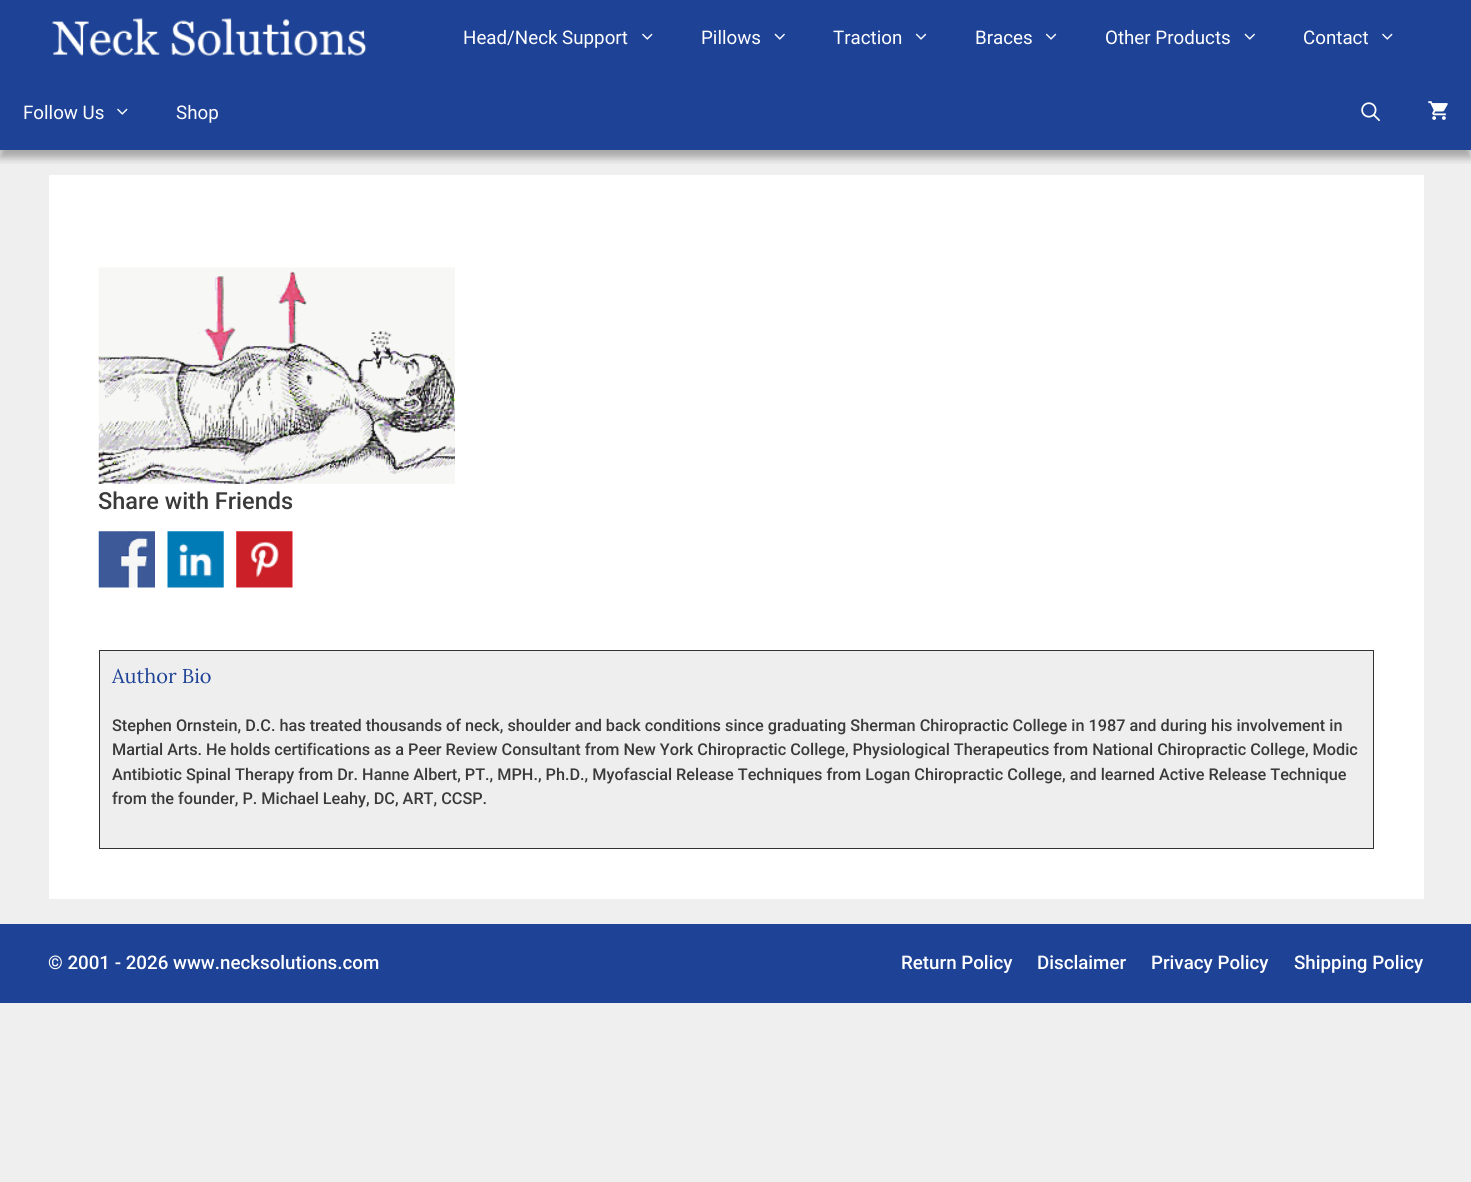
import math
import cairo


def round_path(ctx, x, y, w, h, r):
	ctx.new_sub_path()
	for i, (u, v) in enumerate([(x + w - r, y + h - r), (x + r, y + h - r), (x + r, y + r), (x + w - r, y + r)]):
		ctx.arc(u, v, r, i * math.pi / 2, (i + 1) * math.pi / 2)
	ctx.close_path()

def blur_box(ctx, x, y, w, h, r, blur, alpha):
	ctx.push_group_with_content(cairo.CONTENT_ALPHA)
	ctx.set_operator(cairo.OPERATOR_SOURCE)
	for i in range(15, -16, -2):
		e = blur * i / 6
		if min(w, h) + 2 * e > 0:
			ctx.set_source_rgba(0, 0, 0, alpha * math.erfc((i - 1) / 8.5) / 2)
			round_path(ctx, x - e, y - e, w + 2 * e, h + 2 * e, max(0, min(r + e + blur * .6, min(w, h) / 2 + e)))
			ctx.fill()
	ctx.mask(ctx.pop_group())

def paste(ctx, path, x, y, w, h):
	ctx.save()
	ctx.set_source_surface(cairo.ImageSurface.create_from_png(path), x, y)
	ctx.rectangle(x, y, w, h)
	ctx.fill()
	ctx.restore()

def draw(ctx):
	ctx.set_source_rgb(0.937, 0.937, 0.937)
	ctx.paint()
	ctx.set_source_rgb(0.114, 0.259, 0.588)
	ctx.rectangle(0, 0, 1471, 150)
	ctx.fill()
	ctx.save()
	ctx.rectangle(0, 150, 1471, 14)
	ctx.clip()
	ctx.set_source_rgb(0, 0, 0)
	blur_box(ctx, 0, 8, 1471, 150, 0, 4, 0.3)
	ctx.restore()
	paste(ctx, 'media/1.png', 52, 18, 315, 38)
	ctx.select_font_face('Roboto')
	ctx.set_font_size(18.75)
	ctx.set_source_rgb(1, 1, 1)
	ctx.move_to(463, 44)
	ctx.show_text('Head/Neck Support')
	paste(ctx, 'media/2.png', 642, 33, 11, 7)
	ctx.move_to(701, 44)
	ctx.show_text('Pillows')
	paste(ctx, 'media/3.png', 774, 33, 11, 7)
	ctx.move_to(833, 44)
	ctx.show_text('Traction')
	paste(ctx, 'media/4.png', 915, 33, 12, 7)
	ctx.move_to(975, 44)
	ctx.show_text('Braces')
	paste(ctx, 'media/4.png', 1045, 33, 12, 7)
	ctx.move_to(1105, 44)
	ctx.show_text('Other Products')
	paste(ctx, 'media/3.png', 1244, 33, 11, 7)
	ctx.move_to(1303, 44)
	ctx.show_text('Contact')
	paste(ctx, 'media/2.png', 1382, 33, 11, 7)
	ctx.move_to(23, 119)
	ctx.show_text('Follow Us')
	paste(ctx, 'media/2.png', 117, 108, 11, 7)
	ctx.move_to(176, 119)
	ctx.show_text('Shop')
	paste(ctx, 'media/5.png', 1361, 102, 19, 19)
	paste(ctx, 'media/6.png', 1428, 101, 20, 19)
	ctx.rectangle(49, 175, 1375, 724)
	ctx.fill()
	paste(ctx, 'media/7.png', 98, 267, 357, 217)
	ctx.select_font_face('Roboto Medium')
	ctx.set_font_size(23.5)
	ctx.set_source_rgb(0.227, 0.227, 0.227)
	ctx.move_to(98, 509)
	ctx.show_text('Share with Friends')
	paste(ctx, 'media/8.png', 98, 531, 57, 57)
	paste(ctx, 'media/9.png', 167, 531, 57, 57)
	paste(ctx, 'media/10.png', 236, 531, 57, 57)
	ctx.set_source_rgb(0.933, 0.933, 0.933)
	ctx.rectangle(99.5, 650.5, 1274, 198)
	ctx.fill_preserve()
	ctx.set_source_rgb(0.2, 0.2, 0.2)
	ctx.set_line_width(1)
	ctx.stroke()
	ctx.select_font_face('Lora')
	ctx.set_font_size(20)
	ctx.set_source_rgb(0.114, 0.259, 0.588)
	ctx.move_to(112, 683)
	ctx.show_text('Author Bio')
	ctx.select_font_face('Roboto Medium')
	ctx.set_font_size(16.25)
	ctx.set_source_rgb(0.227, 0.227, 0.227)
	for x, y, s in [
		(112, 731, 'Stephen Ornstein, D.C. has treated thousands of neck, shoulder and back conditions since graduating Sherman Chiropractic College in 1987 and during his involvement in'),
		(112, 755, 'Martial Arts. He holds certifications as a Peer Review Consultant from New York Chiropractic College, Physiological Therapeutics from National Chiropractic College, Modic'),
		(112, 780, 'Antibiotic Spinal Therapy from Dr. Hanne Albert, PT., MPH., Ph.D., Myofascial Release Techniques from Logan Chiropractic College, and learned Active Release Technique'),
		(112, 804, 'from the founder, P. Michael Leahy, DC, ART, CCSP.'),
	]:
		ctx.move_to(x, y)
		ctx.show_text(s)
	ctx.set_source_rgb(0.114, 0.259, 0.588)
	ctx.rectangle(0, 924, 1471, 79)
	ctx.fill()
	ctx.set_font_size(18.75)
	ctx.set_source_rgb(1, 1, 1)
	for x, y, s in [
		(48, 969, '© 2001 - 2026 www.necksolutions.com'),
		(901, 969, 'Return Policy'),
		(1037, 969, 'Disclaimer'),
		(1151, 969, 'Privacy Policy'),
		(1294, 969, 'Shipping Policy'),
	]:
		ctx.move_to(x, y)
		ctx.show_text(s)


surface = cairo.ImageSurface(cairo.FORMAT_RGB24, 1471, 1182)
ctx = cairo.Context(surface)
options = cairo.FontOptions()
options.set_hint_metrics(cairo.HINT_METRICS_OFF)
options.set_hint_style(cairo.HINT_STYLE_NONE)
ctx.set_font_options(options)
ctx.set_miter_limit(4)
draw(ctx)
surface.write_to_png('image.png')
